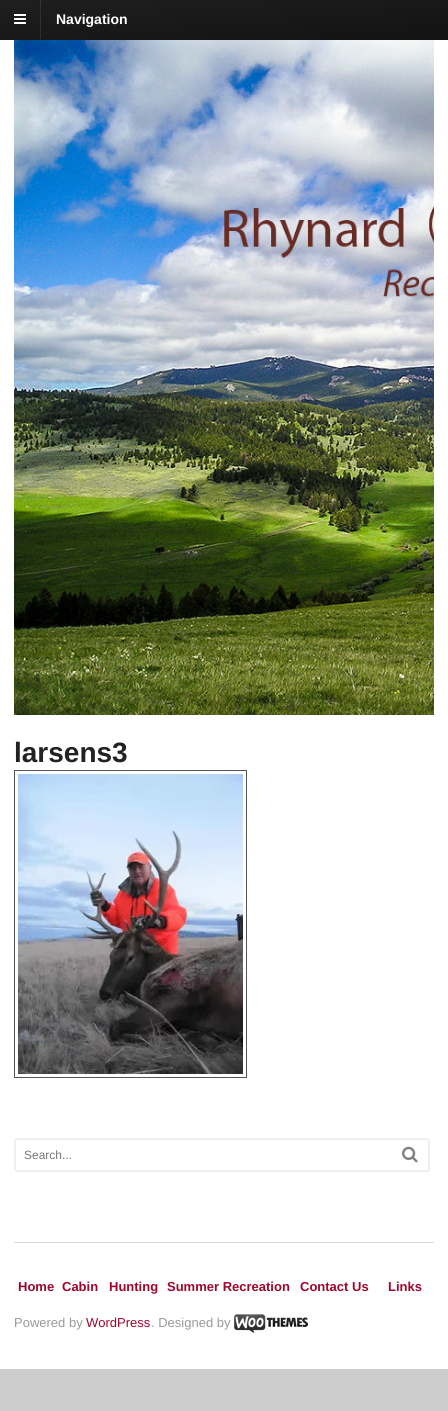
import math
import cairo


def round_path(ctx, x, y, w, h, r):
	ctx.new_sub_path()
	for i, (u, v) in enumerate([(x + w - r, y + h - r), (x + r, y + h - r), (x + r, y + r), (x + w - r, y + r)]):
		ctx.arc(u, v, r, i * math.pi / 2, (i + 1) * math.pi / 2)
	ctx.close_path()

def paste(ctx, path, x, y, w, h):
	ctx.save()
	ctx.set_source_surface(cairo.ImageSurface.create_from_png(path), x, y)
	ctx.rectangle(x, y, w, h)
	ctx.fill()
	ctx.restore()

def draw(ctx):
	ctx.set_source_rgb(0.8, 0.8, 0.8)
	ctx.paint()
	ctx.set_source_rgb(1, 1, 1)
	ctx.rectangle(0, 40, 448, 1329)
	ctx.fill()
	gradient = cairo.LinearGradient(221, -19, 227, 58)
	gradient.add_color_stop_rgba(0, 0.122, 0.122, 0.122, 1)
	gradient.add_color_stop_rgba(1, 0.071, 0.071, 0.071, 1)
	ctx.set_source(gradient)
	ctx.rectangle(0, 0, 448, 39)
	ctx.fill()
	gradient = cairo.LinearGradient(221, -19, 227, 58)
	gradient.add_color_stop_rgba(0, 0.11, 0.11, 0.11, 1)
	gradient.add_color_stop_rgba(1, 0.063, 0.063, 0.063, 1)
	ctx.set_source(gradient)
	ctx.rectangle(41, 4, 1, 30)
	ctx.fill()
	gradient = cairo.LinearGradient(221, -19, 227, 58)
	gradient.add_color_stop_rgba(0, 0.208, 0.208, 0.208, 1)
	gradient.add_color_stop_rgba(1, 0.165, 0.165, 0.165, 1)
	ctx.set_source(gradient)
	ctx.rectangle(40, 0, 1, 39)
	ctx.fill()
	gradient = cairo.LinearGradient(221, 20, 227, 97)
	gradient.add_color_stop_rgba(0, 0.098, 0.098, 0.098, 1)
	gradient.add_color_stop_rgba(1, 0.055, 0.055, 0.055, 1)
	ctx.set_source(gradient)
	ctx.rectangle(0, 39, 448, 1)
	ctx.fill()
	paste(ctx, 'media/1.png', 14, 14, 12, 10)
	ctx.select_font_face('Liberation Sans', cairo.FONT_SLANT_NORMAL, cairo.FONT_WEIGHT_BOLD)
	ctx.set_font_size(14)
	ctx.set_source_rgb(1, 1, 1)
	ctx.move_to(56, 24)
	ctx.show_text('Navigation')
	paste(ctx, 'media/2.png', 14, 40, 420, 675)
	ctx.set_font_size(28)
	ctx.set_source_rgb(0.133, 0.133, 0.133)
	ctx.move_to(14, 762)
	ctx.show_text('larsens3')
	ctx.rectangle(14.5, 770.5, 232, 307)
	ctx.set_source_rgb(0.329, 0.329, 0.329)
	ctx.set_line_width(1)
	ctx.stroke()
	paste(ctx, 'media/3.png', 18, 774, 225, 300)
	round_path(ctx, 15, 1139, 414, 32, 2)
	ctx.set_source_rgb(0.937, 0.937, 0.937)
	ctx.set_line_width(2)
	ctx.stroke()
	ctx.select_font_face('Liberation Sans')
	ctx.set_font_size(12)
	ctx.set_source_rgb(0.467, 0.467, 0.467)
	ctx.move_to(24, 1159)
	ctx.show_text('Search...')
	paste(ctx, 'media/4.png', 402, 1146, 16, 17)
	ctx.set_source_rgb(0.859, 0.859, 0.859)
	ctx.rectangle(14, 1242, 420, 1)
	ctx.fill()
	ctx.select_font_face('Liberation Sans', cairo.FONT_SLANT_NORMAL, cairo.FONT_WEIGHT_BOLD)
	ctx.set_font_size(13)
	ctx.set_source_rgb(0.62, 0.024, 0.18)
	for x, y, s in [
		(18, 1291, 'Home'),
		(62, 1291, 'Cabin'),
		(109, 1291, 'Hunting'),
		(167, 1291, 'Summer Recreation'),
		(300, 1291, 'Contact Us'),
		(388, 1291, 'Links'),
	]:
		ctx.move_to(x, y)
		ctx.show_text(s)
	ctx.select_font_face('Liberation Sans')
	ctx.set_source_rgb(0.6, 0.6, 0.6)
	ctx.move_to(14, 1327)
	ctx.show_text('Powered by')
	ctx.set_source_rgb(0.62, 0.024, 0.18)
	ctx.move_to(86, 1327)
	ctx.show_text('WordPress')
	ctx.set_source_rgb(0.6, 0.6, 0.6)
	ctx.move_to(151, 1327)
	ctx.show_text('. Designed by')
	paste(ctx, 'media/5.png', 234, 1314, 74, 19)


surface = cairo.ImageSurface(cairo.FORMAT_RGB24, 448, 1411)
ctx = cairo.Context(surface)
options = cairo.FontOptions()
options.set_hint_metrics(cairo.HINT_METRICS_OFF)
options.set_hint_style(cairo.HINT_STYLE_NONE)
ctx.set_font_options(options)
ctx.set_miter_limit(4)
draw(ctx)
surface.write_to_png('image.png')
